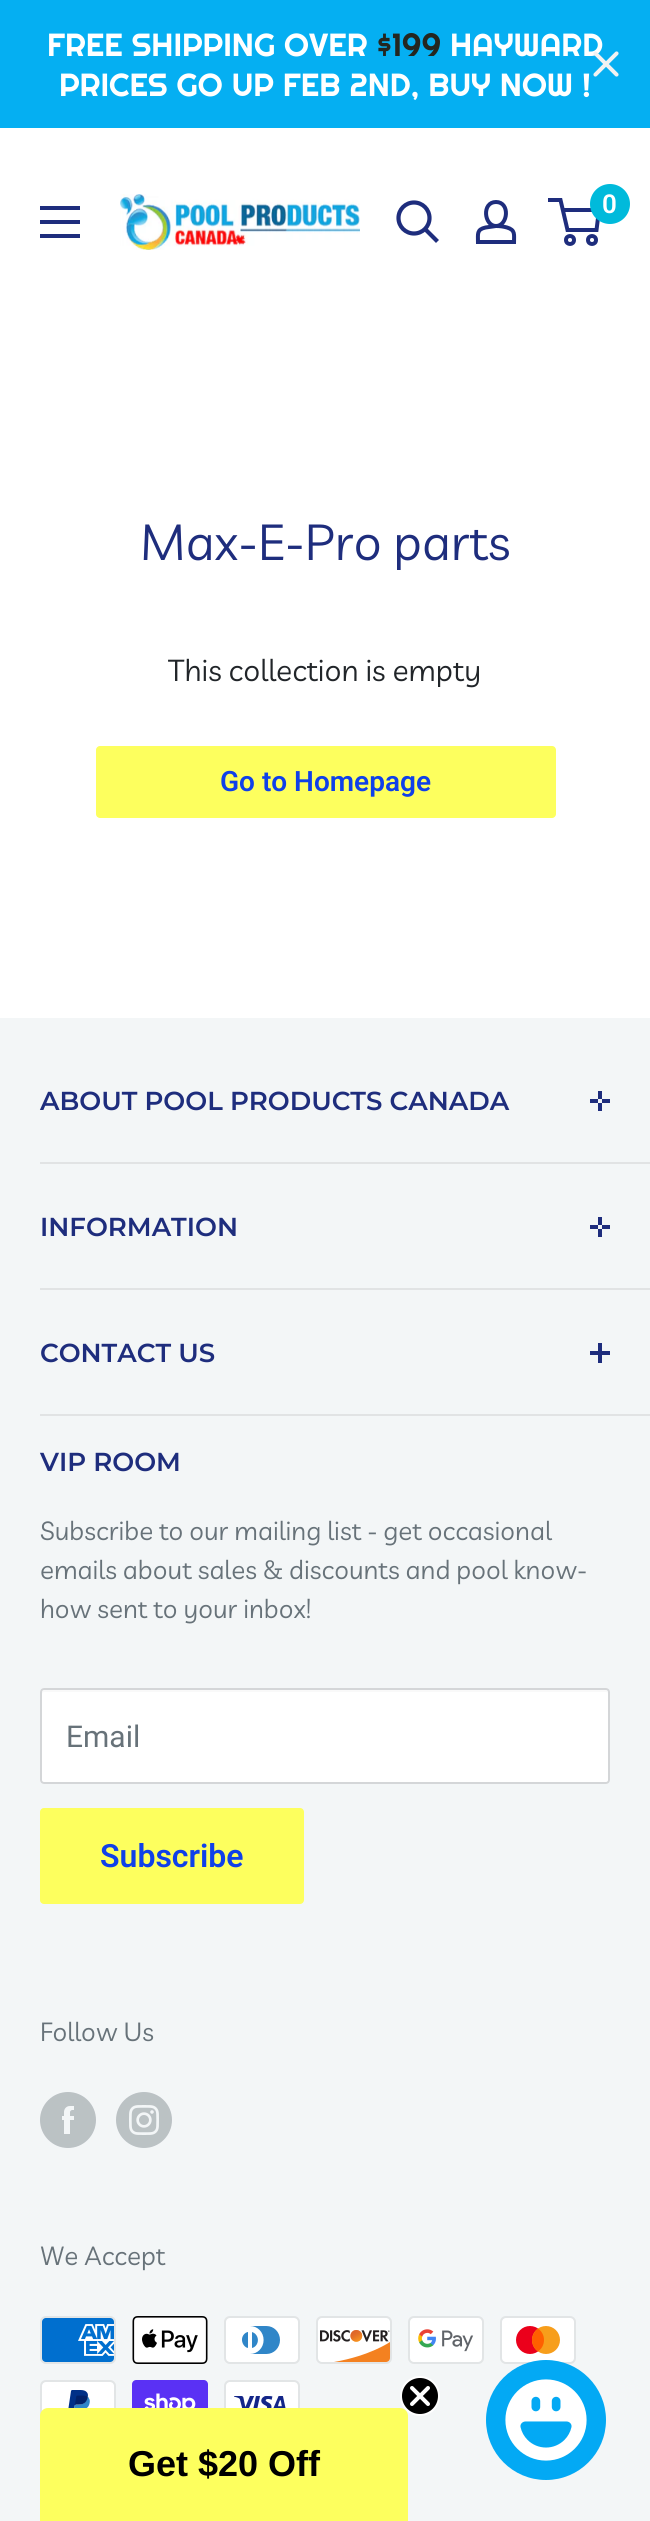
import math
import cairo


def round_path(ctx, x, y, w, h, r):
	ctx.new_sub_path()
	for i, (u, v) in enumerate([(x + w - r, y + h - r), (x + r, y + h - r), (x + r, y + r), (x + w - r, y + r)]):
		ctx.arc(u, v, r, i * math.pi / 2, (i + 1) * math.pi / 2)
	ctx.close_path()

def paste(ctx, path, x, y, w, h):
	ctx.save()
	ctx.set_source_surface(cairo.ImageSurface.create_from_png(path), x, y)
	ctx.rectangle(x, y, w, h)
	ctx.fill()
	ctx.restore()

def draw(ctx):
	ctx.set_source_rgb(1, 1, 1)
	ctx.paint()
	ctx.set_source_rgb(0.02, 0.686, 0.949)
	ctx.rectangle(0, 0, 650, 128)
	ctx.fill()
	ctx.select_font_face('Righteous')
	ctx.set_font_size(32)
	ctx.set_source_rgb(1, 1, 1)
	ctx.move_to(47, 56)
	ctx.show_text('FREE SHIPPING OVER')
	ctx.set_source_rgb(0.141, 0.149, 0.125)
	ctx.move_to(377, 56)
	ctx.show_text('$199')
	ctx.set_source_rgb(1, 1, 1)
	ctx.move_to(450, 56)
	ctx.show_text('HAYWARD')
	paste(ctx, 'media/1.png', 593, 51, 26, 26)
	ctx.move_to(59, 96)
	ctx.show_text('PRICES GO UP FEB 2ND, BUY NOW !')
	paste(ctx, 'media/2.png', 120, 194, 240, 56)
	ctx.new_path()
	ctx.move_to(436, 240)
	ctx.line_to(425.5, 229.5)
	ctx.set_source_rgb(0.118, 0.176, 0.49)
	ctx.set_line_width(4.2)
	ctx.set_line_cap(cairo.LINE_CAP_SQUARE)
	ctx.stroke()
	ctx.arc(414, 218, 15.5, 0, 2 * math.pi)
	ctx.set_line_cap(cairo.LINE_CAP_BUTT)
	ctx.stroke()
	ctx.new_path()
	ctx.move_to(496, 226)
	ctx.curve_to(500, 226, 503.5, 226.5, 507, 227.5)
	ctx.curve_to(515.5, 230, 514, 234.5, 514, 242)
	ctx.line_to(478, 242)
	ctx.curve_to(478, 234, 476.5, 229.5, 485.5, 227.5)
	ctx.close_path()
	ctx.move_to(496, 226)
	ctx.curve_to(484, 226, 481.5, 202, 496, 202)
	ctx.curve_to(510.5, 202, 508, 226, 496, 226)
	ctx.close_path()
	ctx.set_line_width(4)
	ctx.stroke()
	ctx.arc(570, 240, 4, 0, 2 * math.pi)
	ctx.stroke()
	ctx.arc(592, 240, 4, 0, 2 * math.pi)
	ctx.stroke()
	ctx.new_path()
	ctx.move_to(562.5, 210)
	ctx.line_to(599, 210)
	ctx.line_to(596.5, 230)
	ctx.line_to(567.5, 230)
	ctx.line_to(560.5, 200)
	ctx.line_to(548, 200)
	ctx.stroke()
	ctx.set_source_rgb(0, 0.729, 0.859)
	ctx.arc(610, 204, 20, 0, 2 * math.pi)
	ctx.fill()
	ctx.select_font_face('Roboto SemiBold')
	ctx.set_font_size(26)
	ctx.set_source_rgb(1, 1, 1)
	ctx.move_to(602, 213)
	ctx.show_text('0')
	ctx.set_source_rgb(0.118, 0.176, 0.49)
	ctx.set_fill_rule(cairo.FILL_RULE_EVEN_ODD)
	ctx.new_path()
	ctx.move_to(40, 234)
	ctx.line_to(80, 234)
	ctx.line_to(80, 238)
	ctx.line_to(40, 238)
	ctx.close_path()
	ctx.move_to(40, 206)
	ctx.line_to(80, 206)
	ctx.line_to(80, 210)
	ctx.line_to(40, 210)
	ctx.close_path()
	ctx.move_to(40, 220)
	ctx.line_to(80, 220)
	ctx.line_to(80, 224)
	ctx.line_to(40, 224)
	ctx.close_path()
	ctx.fill()
	ctx.select_font_face('Livvic')
	ctx.set_font_size(50)
	ctx.move_to(140, 560)
	ctx.show_text('Max-E-Pro parts')
	ctx.set_font_size(30)
	ctx.set_source_rgb(0.129, 0.145, 0.161)
	ctx.move_to(168, 681)
	ctx.show_text('This collection is empty')
	ctx.set_source_rgb(0.992, 1, 0.369)
	round_path(ctx, 96, 746, 460, 72, 4)
	ctx.fill()
	ctx.select_font_face('Roboto SemiBold')
	ctx.set_font_size(28)
	ctx.set_source_rgb(0.059, 0.251, 0.914)
	ctx.move_to(220, 791)
	ctx.show_text('Go to Homepage')
	ctx.set_source_rgb(0.953, 0.961, 0.965)
	ctx.rectangle(0, 1018, 650, 1503)
	ctx.fill()
	ctx.set_source_rgb(0.882, 0.89, 0.894)
	ctx.rectangle(40, 1162, 610, 2)
	ctx.fill()
	ctx.select_font_face('Montserrat Thin')
	ctx.set_font_size(26)
	ctx.set_source_rgb(0.118, 0.176, 0.49)
	ctx.move_to(40, 1110)
	ctx.show_text('ABOUT POOL PRODUCTS CANADA')
	ctx.rectangle(598, 1091, 4, 20)
	ctx.rectangle(590, 1099, 20, 4)
	ctx.fill()
	ctx.set_source_rgb(0.882, 0.89, 0.894)
	ctx.rectangle(40, 1288, 610, 2)
	ctx.fill()
	ctx.set_source_rgb(0.118, 0.176, 0.49)
	ctx.move_to(40, 1236)
	ctx.show_text('INFORMATION')
	ctx.rectangle(598, 1217, 4, 20)
	ctx.rectangle(590, 1225, 20, 4)
	ctx.fill()
	ctx.set_source_rgb(0.882, 0.89, 0.894)
	ctx.rectangle(40, 1414, 610, 2)
	ctx.fill()
	ctx.set_source_rgb(0.118, 0.176, 0.49)
	ctx.move_to(40, 1362)
	ctx.show_text('CONTACT US')
	ctx.rectangle(598, 1343, 4, 20)
	ctx.fill()
	ctx.rectangle(590, 1351, 20, 4)
	ctx.fill()
	ctx.move_to(40, 1471)
	ctx.show_text('VIP ROOM')
	ctx.select_font_face('Livvic')
	ctx.set_source_rgb(0.404, 0.447, 0.475)
	for x, y, s in [
		(40, 1540, 'Subscribe to our mailing list - get occasional'),
		(40, 1579, 'emails about sales & discounts and pool know-'),
		(40, 1618, 'how sent to your inbox!'),
	]:
		ctx.move_to(x, y)
		ctx.show_text(s)
	ctx.set_source_rgb(1, 1, 1)
	round_path(ctx, 40, 1688, 570, 96, 4)
	ctx.fill()
	ctx.set_source_rgb(0.973, 0.973, 0.973)
	ctx.set_fill_rule(cairo.FILL_RULE_WINDING)
	ctx.new_path()
	ctx.move_to(44, 1692)
	ctx.line_to(606, 1692)
	ctx.curve_to(607, 1692, 608, 1693, 608, 1694)
	ctx.curve_to(608, 1692, 608, 1690, 606, 1690)
	ctx.line_to(44, 1690)
	ctx.line_to(42, 1691)
	ctx.line_to(42, 1694)
	ctx.curve_to(42, 1693, 43, 1692, 44, 1692)
	ctx.close_path()
	ctx.fill()
	round_path(ctx, 41, 1689, 568, 94, 3)
	ctx.set_source_rgb(0.831, 0.839, 0.847)
	ctx.set_line_width(2)
	ctx.stroke()
	ctx.select_font_face('Roboto')
	ctx.set_font_size(30)
	ctx.set_source_rgb(0.404, 0.447, 0.475)
	ctx.move_to(66, 1747)
	ctx.show_text('Email')
	ctx.set_source_rgb(0.992, 1, 0.369)
	round_path(ctx, 40, 1808, 264, 96, 4)
	ctx.fill()
	ctx.select_font_face('Roboto SemiBold')
	ctx.set_font_size(32)
	ctx.set_source_rgb(0.059, 0.251, 0.914)
	ctx.move_to(100, 1867)
	ctx.show_text('Subscribe')
	ctx.select_font_face('Livvic')
	ctx.set_font_size(26)
	ctx.set_source_rgb(0.404, 0.447, 0.475)
	ctx.move_to(40, 2041)
	ctx.show_text('Follow Us')
	paste(ctx, 'media/3.png', 40, 2092, 56, 56)
	paste(ctx, 'media/4.png', 116, 2092, 56, 56)
	ctx.move_to(40, 2265)
	ctx.show_text('We Accept')
	paste(ctx, 'media/5.png', 40, 2316, 76, 48)
	paste(ctx, 'media/6.png', 132, 2316, 76, 48)
	paste(ctx, 'media/7.png', 224, 2316, 76, 48)
	paste(ctx, 'media/8.png', 316, 2316, 76, 48)
	paste(ctx, 'media/9.png', 408, 2316, 76, 48)
	paste(ctx, 'media/10.png', 500, 2316, 76, 48)
	paste(ctx, 'media/11.png', 40, 2380, 76, 36)
	paste(ctx, 'media/12.png', 132, 2380, 76, 28)
	paste(ctx, 'media/13.png', 224, 2380, 76, 28)
	ctx.set_source_rgb(0.992, 1, 0.369)
	ctx.new_path()
	ctx.move_to(48, 2408)
	ctx.line_to(400, 2408)
	ctx.curve_to(404.5, 2408, 408, 2411.5, 408, 2416)
	ctx.line_to(408, 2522)
	ctx.line_to(40, 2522)
	ctx.line_to(40, 2416)
	ctx.curve_to(40, 2411.5, 43.5, 2408, 48, 2408)
	ctx.close_path()
	ctx.fill()
	ctx.set_source_rgb(0, 0, 0)
	ctx.arc(420, 2396, 19, 0, 2 * math.pi)
	ctx.fill_preserve()
	ctx.set_source_rgb(1, 1, 1)
	ctx.stroke()
	ctx.new_path()
	ctx.move_to(412, 2388)
	ctx.line_to(428, 2404)
	ctx.move_to(412, 2404)
	ctx.line_to(428, 2388)
	ctx.close_path()
	ctx.set_line_width(4)
	ctx.set_line_cap(cairo.LINE_CAP_ROUND)
	ctx.set_line_join(cairo.LINE_JOIN_ROUND)
	ctx.stroke()
	ctx.select_font_face('Liberation Sans', cairo.FONT_SLANT_NORMAL, cairo.FONT_WEIGHT_BOLD)
	ctx.set_font_size(36)
	ctx.set_source_rgb(0, 0, 0)
	ctx.move_to(128, 2476)
	ctx.show_text('Get $20 Off')
	ctx.set_source_rgb(0.012, 0.663, 0.957)
	ctx.new_path()
	ctx.arc(546, 2420, 60, 0, 2 * math.pi)
	ctx.fill()
	paste(ctx, 'media/14.png', 505, 2379, 82, 82)


surface = cairo.ImageSurface(cairo.FORMAT_RGB24, 650, 2521)
ctx = cairo.Context(surface)
options = cairo.FontOptions()
options.set_hint_metrics(cairo.HINT_METRICS_OFF)
options.set_hint_style(cairo.HINT_STYLE_NONE)
ctx.set_font_options(options)
ctx.set_miter_limit(4)
draw(ctx)
surface.write_to_png('image.png')
